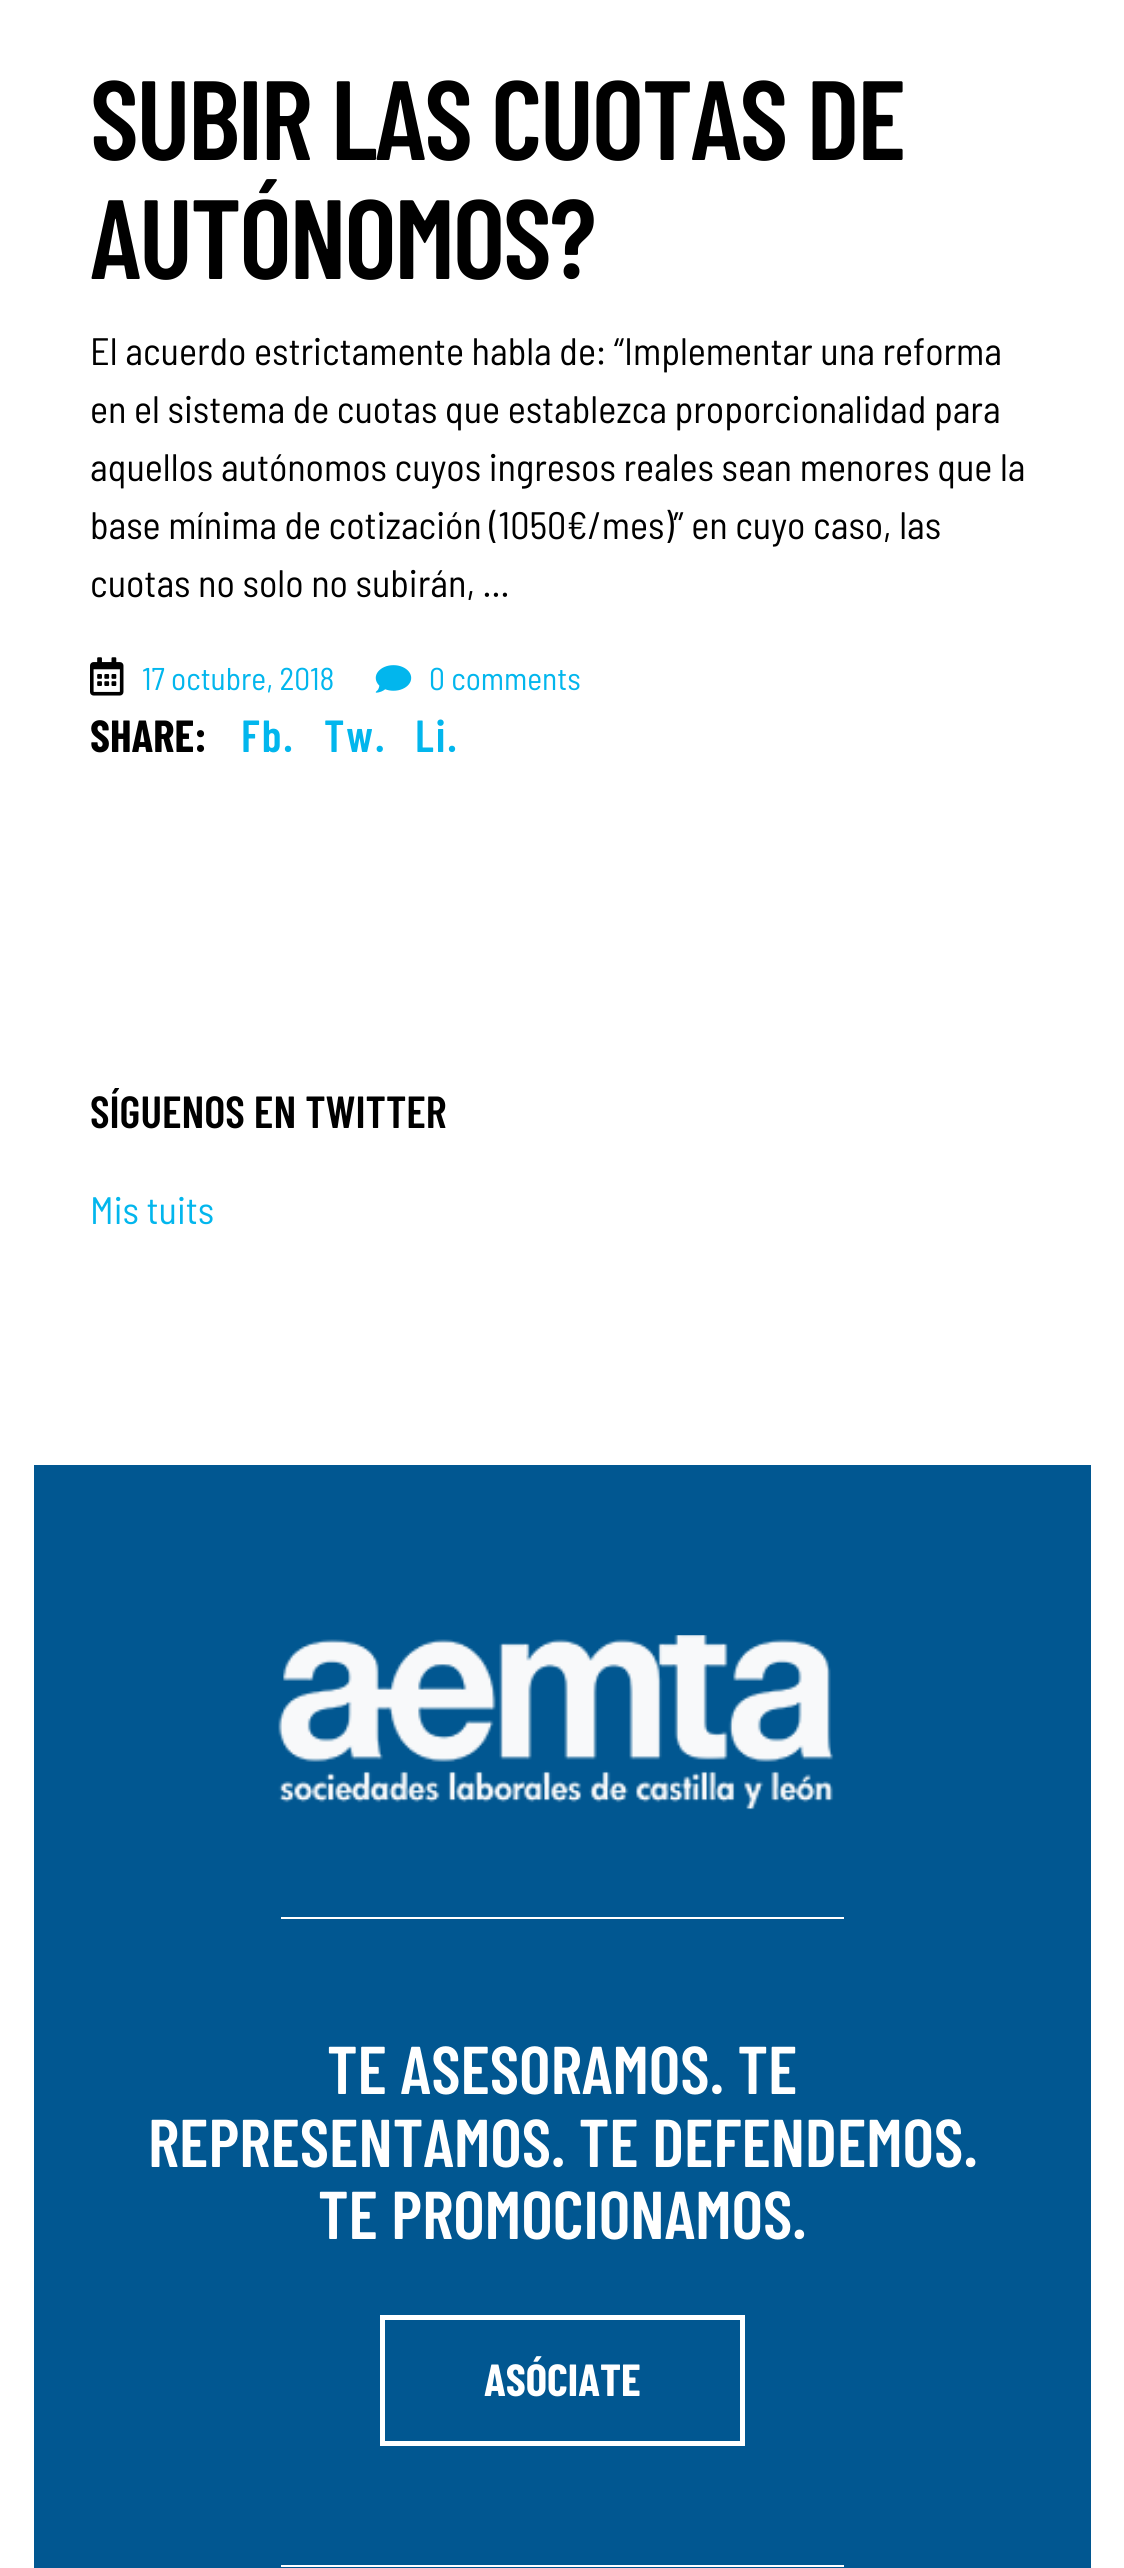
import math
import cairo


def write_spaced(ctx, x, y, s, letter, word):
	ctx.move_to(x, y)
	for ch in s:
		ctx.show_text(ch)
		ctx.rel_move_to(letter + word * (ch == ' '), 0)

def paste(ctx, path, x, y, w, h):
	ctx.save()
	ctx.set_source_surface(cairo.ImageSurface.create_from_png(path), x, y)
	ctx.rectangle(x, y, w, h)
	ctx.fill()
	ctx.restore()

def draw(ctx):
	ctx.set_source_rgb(1, 1, 1)
	ctx.paint()
	ctx.select_font_face('Barlow Condensed SemiBold')
	ctx.set_font_size(112.5)
	ctx.set_source_rgb(0, 0, 0)
	write_spaced(ctx, 90, 160, 'SUBIR LAS CUOTAS DE', -2.25, 0)
	write_spaced(ctx, 90, 279, 'AUTÓNOMOS?', -2.25, 0)
	ctx.select_font_face('Barlow Semi Condensed')
	ctx.set_font_size(38.25)
	for x, y, s in [
		(90, 365, 'El acuerdo estrictamente habla de: “Implementar una reforma'),
		(90, 423, 'en el sistema de cuotas que establezca proporcionalidad para'),
		(90, 481, 'aquellos autónomos cuyos ingresos reales sean menores que la'),
		(90, 539, 'base mínima de cotización (1050€/mes)” en cuyo caso, las'),
		(90, 597, 'cuotas no solo no subirán, ...'),
	]:
		ctx.move_to(x, y)
		ctx.show_text(s)
	paste(ctx, 'media/1.png', 90, 657, 34, 39)
	ctx.set_font_size(31.5)
	ctx.set_source_rgb(0.008, 0.714, 0.929)
	ctx.move_to(142, 690)
	ctx.show_text('17 octubre, 2018')
	paste(ctx, 'media/2.png', 375, 665, 37, 28)
	ctx.move_to(429, 690)
	ctx.show_text('0 comments')
	ctx.select_font_face('Barlow Condensed', cairo.FONT_SLANT_NORMAL, cairo.FONT_WEIGHT_BOLD)
	ctx.set_font_size(45)
	ctx.set_source_rgb(0, 0, 0)
	ctx.move_to(90, 752)
	ctx.show_text('SHARE:')
	ctx.select_font_face('Barlow Condensed SemiBold')
	ctx.set_source_rgb(0.008, 0.714, 0.929)
	for x, y, s in [
		(241, 752, 'Fb.'),
		(324, 752, 'Tw.'),
		(415, 752, 'Li.'),
	]:
		write_spaced(ctx, x, y, s, 2, 0)
	ctx.set_source_rgb(0, 0, 0)
	ctx.move_to(90, 1128)
	ctx.show_text('SÍGUENOS EN TWITTER')
	ctx.select_font_face('Barlow Semi Condensed')
	ctx.set_font_size(38.25)
	ctx.set_source_rgb(0.008, 0.714, 0.929)
	ctx.move_to(90, 1224)
	ctx.show_text('Mis tuits')
	ctx.set_source_rgb(0.004, 0.341, 0.569)
	ctx.rectangle(34, 1465, 1057, 1103)
	ctx.fill()
	paste(ctx, 'media/3.png', 278, 1635, 556, 175)
	ctx.set_source_rgb(1, 1, 1)
	ctx.rectangle(281, 1917, 563, 2)
	ctx.fill()
	ctx.select_font_face('Barlow Condensed SemiBold')
	ctx.set_font_size(67.5)
	for x, y, s in [
		(327, 2094, 'TE ASESORAMOS. TE'),
		(148, 2167, 'REPRESENTAMOS. TE DEFENDEMOS.'),
		(318, 2239, 'TE PROMOCIONAMOS.'),
	]:
		ctx.move_to(x, y)
		ctx.show_text(s)
	ctx.rectangle(382.5, 2317.5, 360, 126)
	ctx.set_line_width(5)
	ctx.stroke()
	ctx.select_font_face('Barlow Condensed', cairo.FONT_SLANT_NORMAL, cairo.FONT_WEIGHT_BOLD)
	ctx.set_font_size(45)
	ctx.move_to(484, 2396)
	ctx.show_text('ASÓCIATE')
	ctx.rectangle(281, 2565, 563, 2)
	ctx.fill()


surface = cairo.ImageSurface(cairo.FORMAT_RGB24, 1124, 2568)
ctx = cairo.Context(surface)
options = cairo.FontOptions()
options.set_hint_metrics(cairo.HINT_METRICS_OFF)
options.set_hint_style(cairo.HINT_STYLE_NONE)
ctx.set_font_options(options)
ctx.set_miter_limit(4)
draw(ctx)
surface.write_to_png('image.png')
